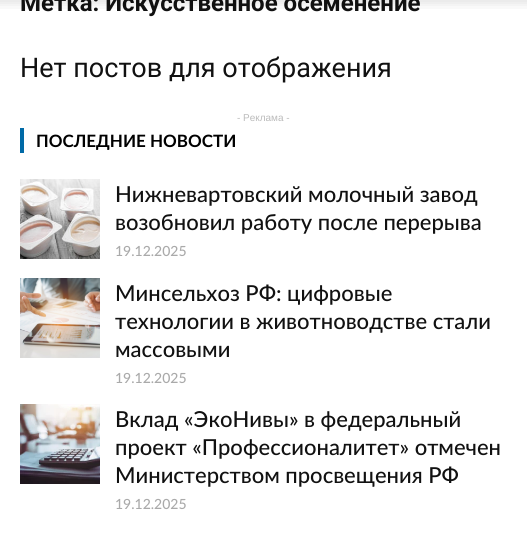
import math
import cairo


def paste(ctx, path, x, y, w, h):
	ctx.save()
	ctx.set_source_surface(cairo.ImageSurface.create_from_png(path), x, y)
	ctx.rectangle(x, y, w, h)
	ctx.fill()
	ctx.restore()

def draw(ctx):
	ctx.set_source_rgb(1, 1, 1)
	ctx.paint()
	ctx.select_font_face('Roboto', cairo.FONT_SLANT_NORMAL, cairo.FONT_WEIGHT_BOLD)
	ctx.set_font_size(24)
	ctx.set_source_rgb(0.067, 0.067, 0.067)
	ctx.move_to(20, 11)
	ctx.show_text('Метка: Искусственное осеменение')
	paste(ctx, 'media/1.png', 0, 0, 527, 9)
	ctx.select_font_face('Roboto')
	ctx.set_font_size(27)
	ctx.move_to(20, 77)
	ctx.show_text('Нет постов для отображения')
	ctx.select_font_face('Liberation Sans')
	ctx.set_font_size(10)
	ctx.set_source_rgb(0.733, 0.733, 0.733)
	ctx.move_to(237, 121)
	ctx.show_text('- Реклама -')
	ctx.set_source_rgb(0, 0.416, 0.655)
	ctx.rectangle(20, 128, 4, 25)
	ctx.fill()
	ctx.select_font_face('Lato', cairo.FONT_SLANT_NORMAL, cairo.FONT_WEIGHT_BOLD)
	ctx.set_font_size(17)
	ctx.set_source_rgb(0, 0, 0)
	ctx.move_to(36, 147)
	ctx.show_text('ПОСЛЕДНИЕ НОВОСТИ')
	paste(ctx, 'media/2.png', 20, 179, 80, 80)
	ctx.select_font_face('Lato Medium')
	ctx.set_font_size(22)
	ctx.set_source_rgb(0.067, 0.067, 0.067)
	ctx.move_to(115, 202)
	ctx.show_text('Нижневартовский молочный завод')
	ctx.move_to(115, 230)
	ctx.show_text('возобновил работу после перерыва')
	ctx.set_font_size(14)
	ctx.set_source_rgb(0.667, 0.667, 0.667)
	ctx.move_to(115, 256)
	ctx.show_text('19.12.2025')
	paste(ctx, 'media/3.png', 20, 278, 80, 80)
	ctx.set_font_size(22)
	ctx.set_source_rgb(0.067, 0.067, 0.067)
	for x, y, s in [
		(115, 301, 'Минсельхоз РФ: цифровые'),
		(115, 329, 'технологии в животноводстве стали'),
		(115, 357, 'массовыми'),
	]:
		ctx.move_to(x, y)
		ctx.show_text(s)
	ctx.set_font_size(14)
	ctx.set_source_rgb(0.667, 0.667, 0.667)
	ctx.move_to(115, 383)
	ctx.show_text('19.12.2025')
	paste(ctx, 'media/4.png', 20, 404, 80, 80)
	ctx.set_font_size(22)
	ctx.set_source_rgb(0.067, 0.067, 0.067)
	for x, y, s in [
		(115, 427, 'Вклад «ЭкоНивы» в федеральный'),
		(115, 455, 'проект «Профессионалитет» отмечен'),
		(115, 483, 'Министерством просвещения РФ'),
	]:
		ctx.move_to(x, y)
		ctx.show_text(s)
	ctx.set_font_size(14)
	ctx.set_source_rgb(0.667, 0.667, 0.667)
	ctx.move_to(115, 509)
	ctx.show_text('19.12.2025')


surface = cairo.ImageSurface(cairo.FORMAT_RGB24, 527, 544)
ctx = cairo.Context(surface)
options = cairo.FontOptions()
options.set_hint_metrics(cairo.HINT_METRICS_OFF)
options.set_hint_style(cairo.HINT_STYLE_NONE)
ctx.set_font_options(options)
ctx.set_miter_limit(4)
draw(ctx)
surface.write_to_png('image.png')
